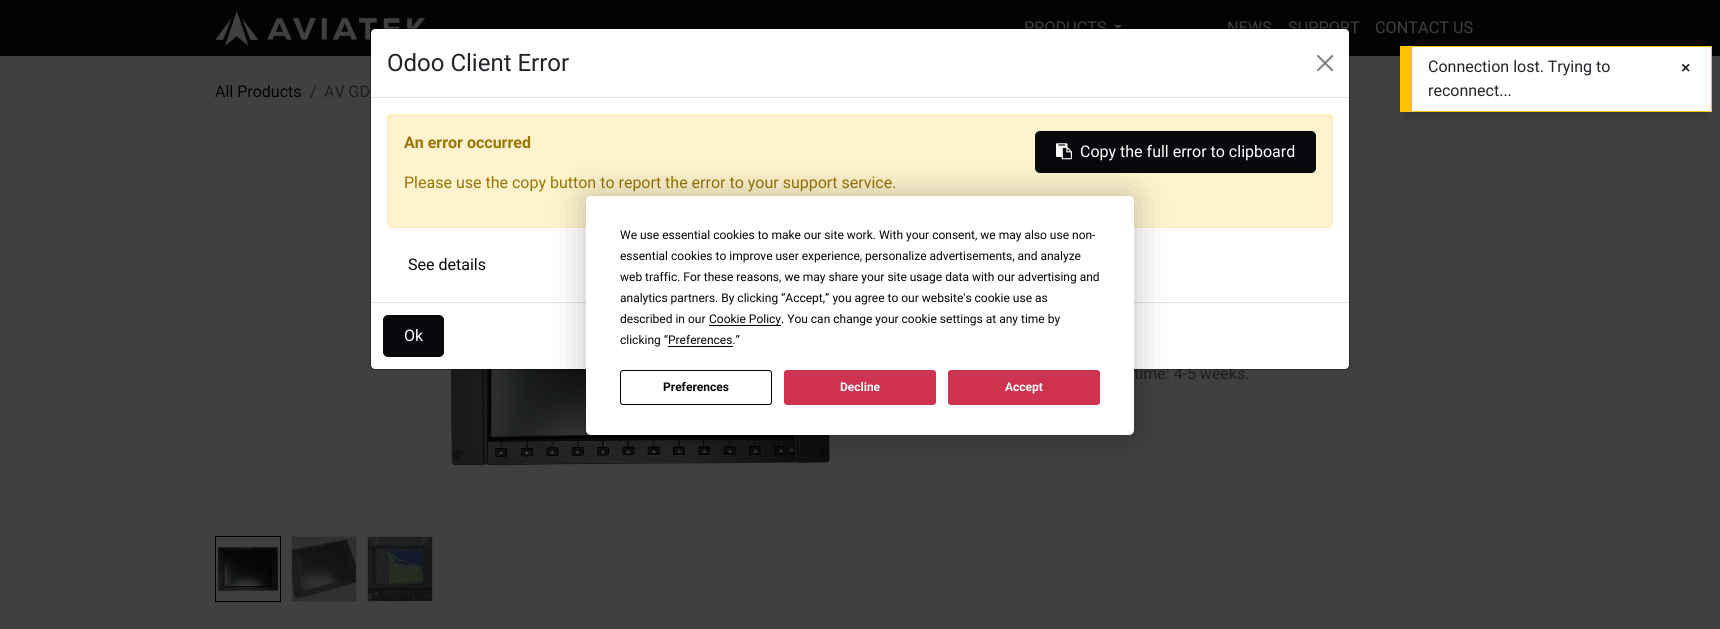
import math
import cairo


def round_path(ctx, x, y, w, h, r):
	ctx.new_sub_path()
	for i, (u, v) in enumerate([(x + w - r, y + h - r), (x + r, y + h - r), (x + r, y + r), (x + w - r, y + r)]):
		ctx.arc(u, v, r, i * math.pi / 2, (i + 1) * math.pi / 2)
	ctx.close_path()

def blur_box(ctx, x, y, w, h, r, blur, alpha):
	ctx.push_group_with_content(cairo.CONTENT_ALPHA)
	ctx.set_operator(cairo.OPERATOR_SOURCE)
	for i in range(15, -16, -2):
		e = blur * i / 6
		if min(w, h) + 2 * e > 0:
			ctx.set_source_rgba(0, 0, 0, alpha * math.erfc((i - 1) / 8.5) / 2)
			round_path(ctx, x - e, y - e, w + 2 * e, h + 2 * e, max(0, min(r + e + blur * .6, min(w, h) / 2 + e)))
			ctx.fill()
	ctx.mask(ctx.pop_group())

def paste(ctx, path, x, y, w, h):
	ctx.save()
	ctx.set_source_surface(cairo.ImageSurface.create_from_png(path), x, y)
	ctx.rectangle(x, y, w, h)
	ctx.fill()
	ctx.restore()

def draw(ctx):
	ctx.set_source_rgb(0.251, 0.251, 0.251)
	ctx.paint()
	ctx.set_source_rgb(0.012, 0.012, 0.016)
	ctx.rectangle(0, 0, 1720, 56)
	ctx.fill()
	paste(ctx, 'media/1.png', 215, 11, 211, 35)
	ctx.select_font_face('Roboto')
	ctx.set_font_size(16.25)
	ctx.set_source_rgb(0.251, 0.251, 0.251)
	ctx.move_to(1024, 33)
	ctx.show_text('PRODUCTS')
	ctx.new_path()
	ctx.move_to(1114, 25)
	ctx.line_to(1122, 25)
	ctx.line_to(1118, 29)
	ctx.close_path()
	ctx.fill()
	for x, y, s in [
		(1227, 33, 'NEWS'),
		(1288, 33, 'SUPPORT'),
		(1375, 33, 'CONTACT US'),
	]:
		ctx.move_to(x, y)
		ctx.show_text(s)
	ctx.set_font_size(16)
	ctx.set_source_rgb(0.012, 0.012, 0.016)
	ctx.move_to(215, 97)
	ctx.show_text('All Products')
	ctx.set_source_rgb(0.106, 0.118, 0.125)
	ctx.move_to(310, 97)
	ctx.show_text('/')
	ctx.move_to(324, 97)
	ctx.show_text('AV GD')
	paste(ctx, 'media/2.png', 449, 369, 381, 98)
	ctx.rectangle(215.5, 536.5, 65, 65)
	ctx.set_source_rgb(0.012, 0.012, 0.016)
	ctx.set_line_width(1)
	ctx.stroke()
	paste(ctx, 'media/3.png', 216, 537, 64, 64)
	ctx.set_source_rgb(0.125, 0.125, 0.125)
	ctx.rectangle(291.5, 536.5, 65, 65)
	ctx.fill_preserve()
	ctx.set_source_rgb(0.227, 0.231, 0.235)
	ctx.stroke()
	paste(ctx, 'media/4.png', 292, 537, 64, 64)
	ctx.set_source_rgb(0.125, 0.125, 0.125)
	ctx.rectangle(367.5, 536.5, 65, 65)
	ctx.fill_preserve()
	ctx.set_source_rgb(0.227, 0.231, 0.235)
	ctx.stroke()
	paste(ctx, 'media/5.png', 368, 537, 64, 64)
	ctx.set_source_rgb(0.106, 0.118, 0.125)
	ctx.move_to(1134, 379)
	ctx.show_text('time: 4-5 weeks.')
	round_path(ctx, 370.5, 28.5, 979, 341, 4.5)
	ctx.set_source_rgba(0, 0, 0, 0.2)
	ctx.stroke()
	ctx.set_source_rgb(1, 1, 1)
	round_path(ctx, 371, 29, 978, 340, 4)
	ctx.fill()
	round_path(ctx, 370.5, 28.5, 979, 341, 4.5)
	ctx.set_source_rgba(0, 0, 0, 0.2)
	ctx.stroke()
	ctx.set_source_rgb(0.871, 0.886, 0.902)
	ctx.rectangle(371, 97, 978, 1)
	ctx.fill()
	ctx.set_font_size(24)
	ctx.set_source_rgb(0.129, 0.145, 0.161)
	ctx.move_to(387, 71)
	ctx.show_text('Odoo Client Error')
	paste(ctx, 'media/6.png', 1317, 55, 16, 16)
	ctx.set_source_rgb(1, 0.953, 0.804)
	round_path(ctx, 387.5, 114.5, 945, 113, 3.5)
	ctx.fill_preserve()
	ctx.set_source_rgb(1, 0.925, 0.71)
	ctx.stroke()
	ctx.select_font_face('Roboto', cairo.FONT_SLANT_NORMAL, cairo.FONT_WEIGHT_BOLD)
	ctx.set_font_size(16)
	ctx.set_source_rgb(0.6, 0.455, 0.016)
	ctx.move_to(404, 148)
	ctx.show_text('An error occurred')
	ctx.set_source_rgb(0.035, 0.039, 0.051)
	round_path(ctx, 1035.5, 131.5, 280, 41, 4.5)
	ctx.fill_preserve()
	ctx.stroke()
	paste(ctx, 'media/7.png', 1056, 143, 16, 17)
	ctx.select_font_face('Roboto')
	ctx.set_source_rgb(1, 1, 1)
	ctx.move_to(1080, 157)
	ctx.show_text('Copy the full error to clipboard')
	ctx.set_source_rgb(0.6, 0.455, 0.016)
	ctx.move_to(404, 188)
	ctx.show_text('Please use the copy button to report the error to your support service.')
	ctx.set_source_rgb(0.035, 0.039, 0.051)
	ctx.move_to(408, 270)
	ctx.show_text('See details')
	ctx.set_source_rgb(0.871, 0.886, 0.902)
	ctx.rectangle(371, 302, 978, 1)
	ctx.fill()
	ctx.set_source_rgb(0.035, 0.039, 0.051)
	round_path(ctx, 383.5, 315.5, 60, 41, 4.5)
	ctx.fill_preserve()
	ctx.stroke()
	ctx.set_source_rgb(1, 1, 1)
	ctx.move_to(404, 341)
	ctx.show_text('Ok')
	ctx.set_source_rgb(0, 0, 0)
	blur_box(ctx, 1410, 68, 292, 46, 0, 7, 0.25)
	ctx.set_source_rgb(1, 1, 1)
	ctx.rectangle(1412, 47, 299, 64)
	ctx.fill()
	ctx.set_source_rgb(1, 0.757, 0.027)
	ctx.rectangle(1412, 46, 300, 1)
	ctx.rectangle(1711, 46, 1, 66)
	ctx.rectangle(1412, 111, 300, 1)
	ctx.rectangle(1400, 46, 12, 66)
	ctx.fill()
	ctx.set_source_rgb(0.129, 0.145, 0.161)
	ctx.move_to(1428, 72)
	ctx.show_text('Connection lost. Trying to')
	ctx.move_to(1428, 96)
	ctx.show_text('reconnect...')
	ctx.select_font_face('Liberation Sans', cairo.FONT_SLANT_NORMAL, cairo.FONT_WEIGHT_BOLD)
	ctx.move_to(1681, 73)
	ctx.show_text('×')
	ctx.set_source_rgb(0, 0, 0)
	blur_box(ctx, 586, 196, 548, 239, 5, 17.5, 0.25)
	ctx.set_source_rgb(1, 1, 1)
	round_path(ctx, 586, 196, 548, 239, 5)
	ctx.fill()
	ctx.select_font_face('Roboto')
	ctx.set_font_size(12)
	ctx.set_source_rgb(0.012, 0.012, 0.016)
	for x, y, s in [
		(620, 239, 'We use essential cookies to make our site work. With your consent, we may also use non-'),
		(620, 260, 'essential cookies to improve user experience, personalize advertisements, and analyze'),
		(620, 281, 'web traffic. For these reasons, we may share your site usage data with our advertising and'),
		(620, 302, 'analytics partners. By clicking “Accept,” you agree to our website\'s cookie use as'),
		(620, 323, 'described in our'),
	]:
		ctx.move_to(x, y)
		ctx.show_text(s)
	ctx.set_source_rgb(0, 0, 0)
	ctx.rectangle(709, 325, 72, 1)
	ctx.fill()
	ctx.set_source_rgb(0.012, 0.012, 0.016)
	ctx.move_to(709, 323)
	ctx.show_text('Cookie Policy. You can change your cookie settings at any time by')
	ctx.move_to(620, 344)
	ctx.show_text('clicking “Preferences.”')
	ctx.set_source_rgb(0, 0, 0)
	ctx.rectangle(668, 346, 65, 1)
	ctx.fill()
	round_path(ctx, 620.5, 370.5, 151, 34, 2.5)
	ctx.stroke()
	ctx.select_font_face('Roboto', cairo.FONT_SLANT_NORMAL, cairo.FONT_WEIGHT_BOLD)
	ctx.set_source_rgb(0.012, 0.012, 0.016)
	ctx.move_to(663, 391)
	ctx.show_text('Preferences')
	ctx.set_source_rgb(0.808, 0.2, 0.31)
	round_path(ctx, 784.5, 370.5, 151, 34, 2.5)
	ctx.fill_preserve()
	ctx.stroke()
	ctx.set_source_rgb(1, 1, 1)
	ctx.move_to(840, 391)
	ctx.show_text('Decline')
	ctx.set_source_rgb(0.808, 0.2, 0.31)
	round_path(ctx, 948.5, 370.5, 151, 34, 2.5)
	ctx.fill_preserve()
	ctx.stroke()
	ctx.set_source_rgb(1, 1, 1)
	ctx.move_to(1005, 391)
	ctx.show_text('Accept')


surface = cairo.ImageSurface(cairo.FORMAT_RGB24, 1720, 629)
ctx = cairo.Context(surface)
options = cairo.FontOptions()
options.set_hint_metrics(cairo.HINT_METRICS_OFF)
options.set_hint_style(cairo.HINT_STYLE_NONE)
ctx.set_font_options(options)
ctx.set_miter_limit(4)
draw(ctx)
surface.write_to_png('image.png')
